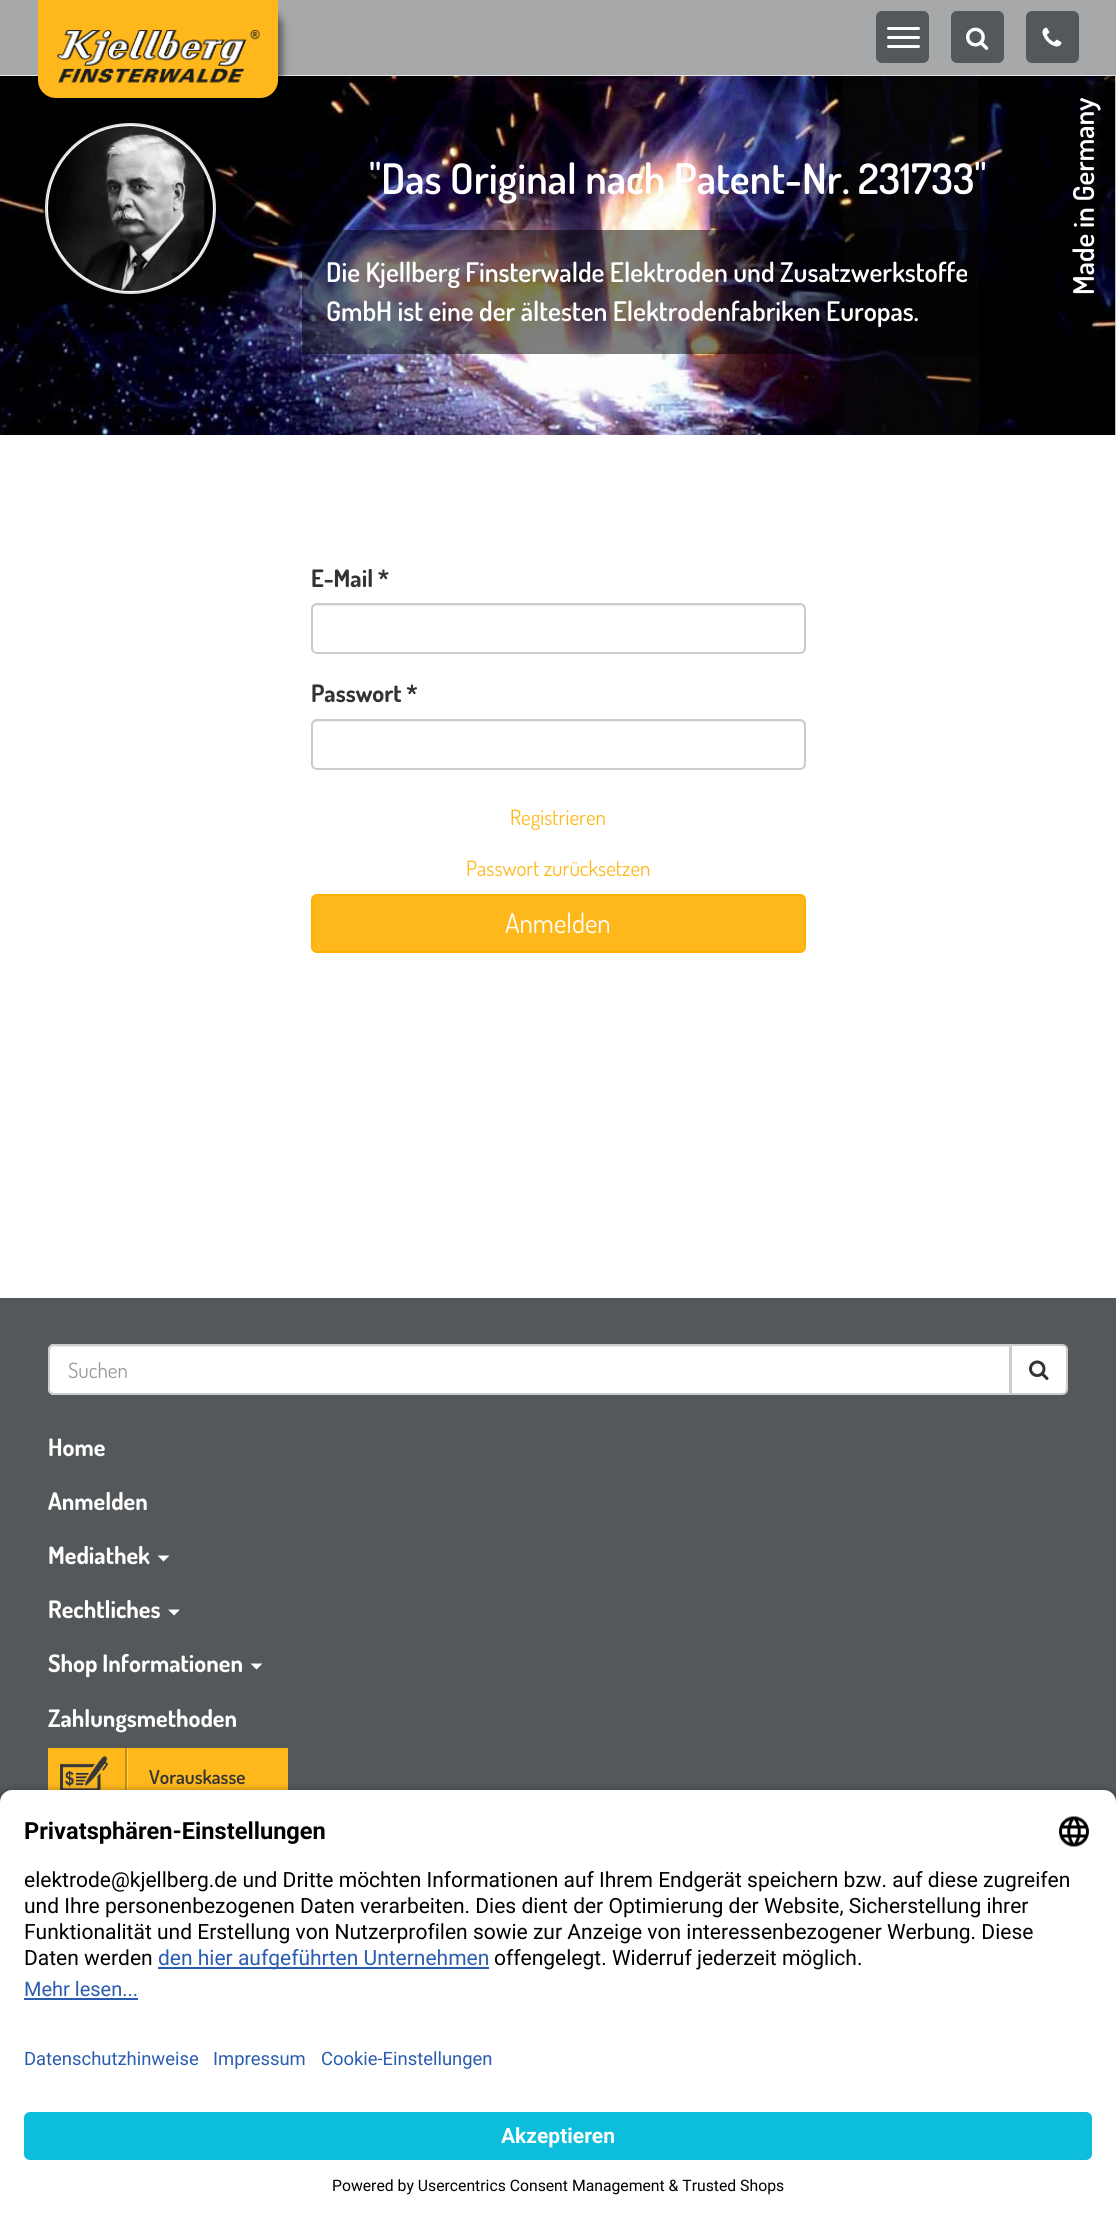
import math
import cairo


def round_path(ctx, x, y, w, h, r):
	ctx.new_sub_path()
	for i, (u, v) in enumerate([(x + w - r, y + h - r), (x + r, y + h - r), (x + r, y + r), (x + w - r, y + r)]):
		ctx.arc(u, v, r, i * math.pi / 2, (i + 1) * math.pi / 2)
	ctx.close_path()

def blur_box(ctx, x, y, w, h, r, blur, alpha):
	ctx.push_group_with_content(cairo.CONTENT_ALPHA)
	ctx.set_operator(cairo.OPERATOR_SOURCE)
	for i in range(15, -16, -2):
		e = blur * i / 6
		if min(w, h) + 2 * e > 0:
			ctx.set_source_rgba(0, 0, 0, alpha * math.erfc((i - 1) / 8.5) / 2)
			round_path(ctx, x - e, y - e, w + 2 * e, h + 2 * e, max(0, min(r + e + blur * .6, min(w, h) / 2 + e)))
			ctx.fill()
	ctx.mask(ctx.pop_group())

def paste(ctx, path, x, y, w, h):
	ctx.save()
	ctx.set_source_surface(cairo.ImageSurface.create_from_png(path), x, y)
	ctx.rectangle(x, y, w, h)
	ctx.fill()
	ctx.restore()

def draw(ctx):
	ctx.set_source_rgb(1, 1, 1)
	ctx.paint()
	ctx.set_source_rgb(0.906, 0.906, 0.906)
	ctx.rectangle(0, 75, 1116, 1)
	ctx.fill()
	ctx.set_source_rgb(0.655, 0.659, 0.667)
	ctx.rectangle(0, 0, 1116, 75)
	ctx.fill()
	ctx.set_source_rgb(0.329, 0.345, 0.353)
	round_path(ctx, 876, 11, 53, 52, 6)
	ctx.fill()
	ctx.set_source_rgb(1, 1, 1)
	round_path(ctx, 887, 27, 33, 3, 1.5)
	ctx.fill()
	round_path(ctx, 887, 36, 33, 3, 1.5)
	ctx.fill()
	round_path(ctx, 887, 45, 33, 3, 1.5)
	ctx.fill()
	ctx.set_source_rgb(0.329, 0.345, 0.353)
	round_path(ctx, 951, 11, 53, 52, 6)
	ctx.fill()
	paste(ctx, 'media/1.png', 966, 27, 23, 23)
	round_path(ctx, 1026, 11, 53, 52, 6)
	ctx.fill()
	paste(ctx, 'media/2.png', 1042, 27, 20, 20)
	paste(ctx, 'media/4.png', 0, 76, 1116, 359)
	ctx.set_source_rgb(0, 0, 0)
	blur_box(ctx, 48, 11, 234, 91, 15, 4, 0.51)
	ctx.set_source_rgb(1, 0.722, 0.11)
	ctx.new_path()
	ctx.move_to(38, 0)
	ctx.line_to(278, 0)
	ctx.line_to(278, 80)
	ctx.curve_to(278, 90, 270, 98, 260, 98)
	ctx.line_to(56, 98)
	ctx.curve_to(46, 98, 38, 90, 38, 80)
	ctx.close_path()
	ctx.fill()
	paste(ctx, 'media/3.png', 57, 30, 203, 53)
	ctx.set_source_rgb(1, 1, 1)
	ctx.arc(130.5, 208.5, 84.5, 0, 2 * math.pi)
	ctx.fill_preserve()
	ctx.set_source_rgb(0.867, 0.867, 0.867)
	ctx.stroke()
	paste(ctx, 'media/5.png', 48, 126, 165, 165)
	ctx.select_font_face('Dosis SemiBold')
	ctx.set_font_size(42)
	ctx.set_source_rgb(1, 1, 1)
	ctx.move_to(369, 194)
	ctx.show_text('"Das Original nach Patent-Nr. 231733"')
	ctx.set_source_rgba(0, 0, 0, 0.5)
	ctx.rectangle(302, 230, 753, 124)
	ctx.fill()
	ctx.set_font_size(27)
	ctx.set_source_rgb(1, 1, 1)
	ctx.move_to(326, 282)
	ctx.show_text('Die Kjellberg Finsterwalde Elektroden und Zusatzwerkstoffe')
	ctx.move_to(326, 321)
	ctx.show_text('GmbH ist eine der ältesten Elektrodenfabriken Europas.')
	ctx.set_font_size(28.75)
	ctx.save()
	ctx.translate(1094, 295)
	ctx.rotate(-90 * math.pi / 180)
	ctx.move_to(0, 0)
	ctx.show_text('Made in Germany')
	ctx.restore()
	ctx.select_font_face('Dosis', cairo.FONT_SLANT_NORMAL, cairo.FONT_WEIGHT_BOLD)
	ctx.set_font_size(24)
	ctx.set_source_rgb(0.2, 0.2, 0.2)
	ctx.move_to(311, 587)
	ctx.show_text('E-Mail *')
	ctx.set_source_rgb(0.925, 0.925, 0.925)
	ctx.new_path()
	ctx.move_to(316, 606)
	ctx.line_to(800, 606)
	ctx.curve_to(802, 606, 804, 608, 804, 610)
	ctx.curve_to(804, 607, 802, 605, 799, 605)
	ctx.line_to(317, 605)
	ctx.curve_to(314, 605, 312, 607, 312, 610)
	ctx.curve_to(312, 608, 314, 606, 316, 606)
	ctx.close_path()
	ctx.fill()
	round_path(ctx, 312, 604, 493, 49, 5)
	ctx.set_source_rgb(0.8, 0.8, 0.8)
	ctx.stroke()
	ctx.set_source_rgb(0.2, 0.2, 0.2)
	ctx.move_to(311, 702)
	ctx.show_text('Passwort *')
	ctx.set_source_rgb(0.925, 0.925, 0.925)
	ctx.new_path()
	ctx.move_to(316, 722)
	ctx.line_to(800, 722)
	ctx.curve_to(802, 722, 804, 724, 804, 726)
	ctx.line_to(804, 725)
	ctx.curve_to(804, 722, 802, 720, 799, 720)
	ctx.line_to(317, 720)
	ctx.curve_to(314, 720, 312, 722, 312, 725)
	ctx.line_to(312, 726)
	ctx.curve_to(312, 724, 314, 722, 316, 722)
	ctx.close_path()
	ctx.fill()
	round_path(ctx, 312, 720, 493, 49, 5)
	ctx.set_source_rgb(0.8, 0.8, 0.8)
	ctx.stroke()
	ctx.select_font_face('Dosis')
	ctx.set_font_size(21)
	ctx.set_source_rgb(1, 0.722, 0.11)
	ctx.move_to(510, 825)
	ctx.show_text('Registrieren')
	ctx.move_to(466, 876)
	ctx.show_text('Passwort zurücksetzen')
	round_path(ctx, 312, 895, 493, 57, 5)
	ctx.fill_preserve()
	ctx.set_source_rgb(1, 0.69, 0.008)
	ctx.stroke()
	ctx.set_font_size(27)
	ctx.set_source_rgb(1, 1, 1)
	ctx.move_to(505, 933)
	ctx.show_text('Anmelden')
	ctx.set_source_rgb(0.329, 0.345, 0.353)
	ctx.rectangle(0, 1298, 1116, 504)
	ctx.fill()
	ctx.set_source_rgb(1, 1, 1)
	ctx.new_path()
	ctx.move_to(54, 1344)
	ctx.line_to(1011, 1344)
	ctx.line_to(1011, 1395)
	ctx.line_to(54, 1395)
	ctx.curve_to(50.5, 1395, 48, 1392.5, 48, 1389)
	ctx.line_to(48, 1350)
	ctx.curve_to(48, 1346.5, 50.5, 1344, 54, 1344)
	ctx.close_path()
	ctx.fill()
	ctx.set_source_rgb(0.925, 0.925, 0.925)
	ctx.new_path()
	ctx.move_to(54, 1347)
	ctx.line_to(1010, 1347)
	ctx.line_to(1010, 1346)
	ctx.line_to(55, 1346)
	ctx.curve_to(52, 1346, 50, 1349, 50, 1352)
	ctx.curve_to(50, 1349, 52, 1347, 54, 1347)
	ctx.close_path()
	ctx.fill()
	ctx.new_path()
	ctx.move_to(54, 1345)
	ctx.line_to(1010, 1345)
	ctx.line_to(1010, 1394)
	ctx.line_to(54, 1394)
	ctx.curve_to(51, 1394, 49, 1392, 49, 1389)
	ctx.line_to(49, 1350)
	ctx.curve_to(49, 1347, 51, 1345, 54, 1345)
	ctx.close_path()
	ctx.set_source_rgb(0.8, 0.8, 0.8)
	ctx.stroke()
	ctx.set_font_size(21)
	ctx.set_source_rgb(0.6, 0.6, 0.6)
	ctx.move_to(68, 1378)
	ctx.show_text('Suchen')
	ctx.set_source_rgb(1, 1, 1)
	ctx.new_path()
	ctx.move_to(1011, 1345)
	ctx.line_to(1062, 1345)
	ctx.curve_to(1065, 1345, 1067, 1347, 1067, 1350)
	ctx.line_to(1067, 1389)
	ctx.curve_to(1067, 1392, 1065, 1394, 1062, 1394)
	ctx.line_to(1011, 1394)
	ctx.close_path()
	ctx.fill_preserve()
	ctx.set_source_rgb(0.8, 0.8, 0.8)
	ctx.stroke()
	paste(ctx, 'media/6.png', 1029, 1360, 20, 20)
	ctx.select_font_face('Dosis', cairo.FONT_SLANT_NORMAL, cairo.FONT_WEIGHT_BOLD)
	ctx.set_font_size(24)
	ctx.set_source_rgb(1, 1, 1)
	for x, y, s in [
		(48, 1456, 'Home'),
		(48, 1510, 'Anmelden'),
		(48, 1564, 'Mediathek'),
	]:
		ctx.move_to(x, y)
		ctx.show_text(s)
	ctx.new_path()
	ctx.move_to(157.5, 1555.5)
	ctx.line_to(169.5, 1555.5)
	ctx.line_to(163.5, 1561.5)
	ctx.close_path()
	ctx.fill()
	ctx.move_to(48, 1618)
	ctx.show_text('Rechtliches')
	ctx.new_path()
	ctx.move_to(168, 1609.5)
	ctx.line_to(180, 1609.5)
	ctx.line_to(174, 1615.5)
	ctx.close_path()
	ctx.fill()
	ctx.move_to(48, 1672)
	ctx.show_text('Shop Informationen')
	ctx.new_path()
	ctx.move_to(250.5, 1663.5)
	ctx.line_to(262.5, 1663.5)
	ctx.line_to(256.5, 1669.5)
	ctx.close_path()
	ctx.fill()
	ctx.move_to(48, 1727)
	ctx.show_text('Zahlungsmethoden')
	ctx.set_source_rgb(1, 0.722, 0.11)
	ctx.rectangle(48, 1748, 240, 42)
	ctx.fill()
	paste(ctx, 'media/7.png', 60, 1755, 48, 35)
	ctx.set_source_rgb(1, 0.816, 0.412)
	ctx.rectangle(127, 1748, 1, 42)
	ctx.fill()
	ctx.set_source_rgb(0.812, 0.557, 0)
	ctx.rectangle(125, 1748, 2, 42)
	ctx.fill()
	ctx.select_font_face('Dosis SemiBold')
	ctx.set_font_size(19.25)
	ctx.set_source_rgb(0.2, 0.2, 0.2)
	ctx.move_to(149, 1784)
	ctx.show_text('Vorauskasse')
	ctx.set_source_rgb(0, 0, 0)
	blur_box(ctx, 0, 1794, 1116, 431, 12, 5, 0.8)
	ctx.set_source_rgb(1, 1, 1)
	ctx.new_path()
	ctx.move_to(12, 1790)
	ctx.line_to(1104, 1790)
	ctx.curve_to(1110.5, 1790, 1116, 1795.5, 1116, 1802)
	ctx.line_to(1116, 2025)
	ctx.line_to(0, 2025)
	ctx.line_to(0, 1802)
	ctx.curve_to(0, 1795.5, 5.5, 1790, 12, 1790)
	ctx.close_path()
	ctx.fill()
	ctx.select_font_face('Roboto', cairo.FONT_SLANT_NORMAL, cairo.FONT_WEIGHT_BOLD)
	ctx.set_font_size(23.6)
	ctx.set_source_rgb(0, 0, 0)
	ctx.move_to(24, 1839)
	ctx.show_text('Privatsphären-Einstellungen')
	paste(ctx, 'media/8.png', 1059, 1816, 30, 31)
	ctx.select_font_face('Roboto')
	ctx.set_font_size(21)
	for x, y, s in [
		(24, 1887, 'elektrode@kjellberg.de und Dritte möchten Informationen auf Ihrem Endgerät speichern bzw. auf diese zugreifen'),
		(24, 1913, 'und Ihre personenbezogenen Daten verarbeiten. Dies dient der Optimierung der Website, Sicherstellung ihrer'),
		(24, 1939, 'Funktionalität und Erstellung von Nutzerprofilen sowie zur Anzeige von interessenbezogener Werbung. Diese'),
		(24, 1965, 'Daten werden'),
	]:
		ctx.move_to(x, y)
		ctx.show_text(s)
	ctx.set_source_rgb(0.165, 0.365, 0.69)
	ctx.rectangle(158, 1967, 331, 2)
	ctx.fill()
	ctx.move_to(158, 1965)
	ctx.show_text('den hier aufgeführten Unternehmen')
	ctx.set_source_rgb(0, 0, 0)
	ctx.move_to(494, 1965)
	ctx.show_text('offengelegt. Widerruf jederzeit möglich.')
	ctx.set_font_size(20)
	ctx.set_source_rgb(0.165, 0.365, 0.69)
	ctx.move_to(24, 1996)
	ctx.show_text('Mehr lesen...')
	ctx.rectangle(24, 1998, 114, 2)
	ctx.fill()
	ctx.set_source_rgb(1, 1, 1)
	ctx.rectangle(0, 2025, 1116, 195)
	ctx.fill()
	ctx.set_font_size(18.4)
	ctx.set_source_rgb(0.165, 0.365, 0.69)
	for x, y, s in [
		(24, 2065, 'Datenschutzhinweise'),
		(213, 2065, 'Impressum'),
		(321, 2065, 'Cookie-Einstellungen'),
	]:
		ctx.move_to(x, y)
		ctx.show_text(s)
	ctx.set_source_rgb(0.051, 0.745, 0.863)
	round_path(ctx, 24, 2112, 1068, 48, 6)
	ctx.fill()
	ctx.select_font_face('Roboto', cairo.FONT_SLANT_NORMAL, cairo.FONT_WEIGHT_BOLD)
	ctx.set_font_size(21)
	ctx.set_source_rgb(1, 1, 1)
	ctx.move_to(501, 2143)
	ctx.show_text('Akzeptieren')
	ctx.select_font_face('Roboto')
	ctx.set_font_size(15.75)
	ctx.set_source_rgb(0, 0, 0)
	ctx.move_to(332, 2191)
	ctx.show_text('Powered by Usercentrics Consent Management & Trusted Shops')


surface = cairo.ImageSurface(cairo.FORMAT_RGB24, 1116, 2220)
ctx = cairo.Context(surface)
options = cairo.FontOptions()
options.set_hint_metrics(cairo.HINT_METRICS_OFF)
options.set_hint_style(cairo.HINT_STYLE_NONE)
ctx.set_font_options(options)
ctx.set_miter_limit(4)
draw(ctx)
surface.write_to_png('image.png')
